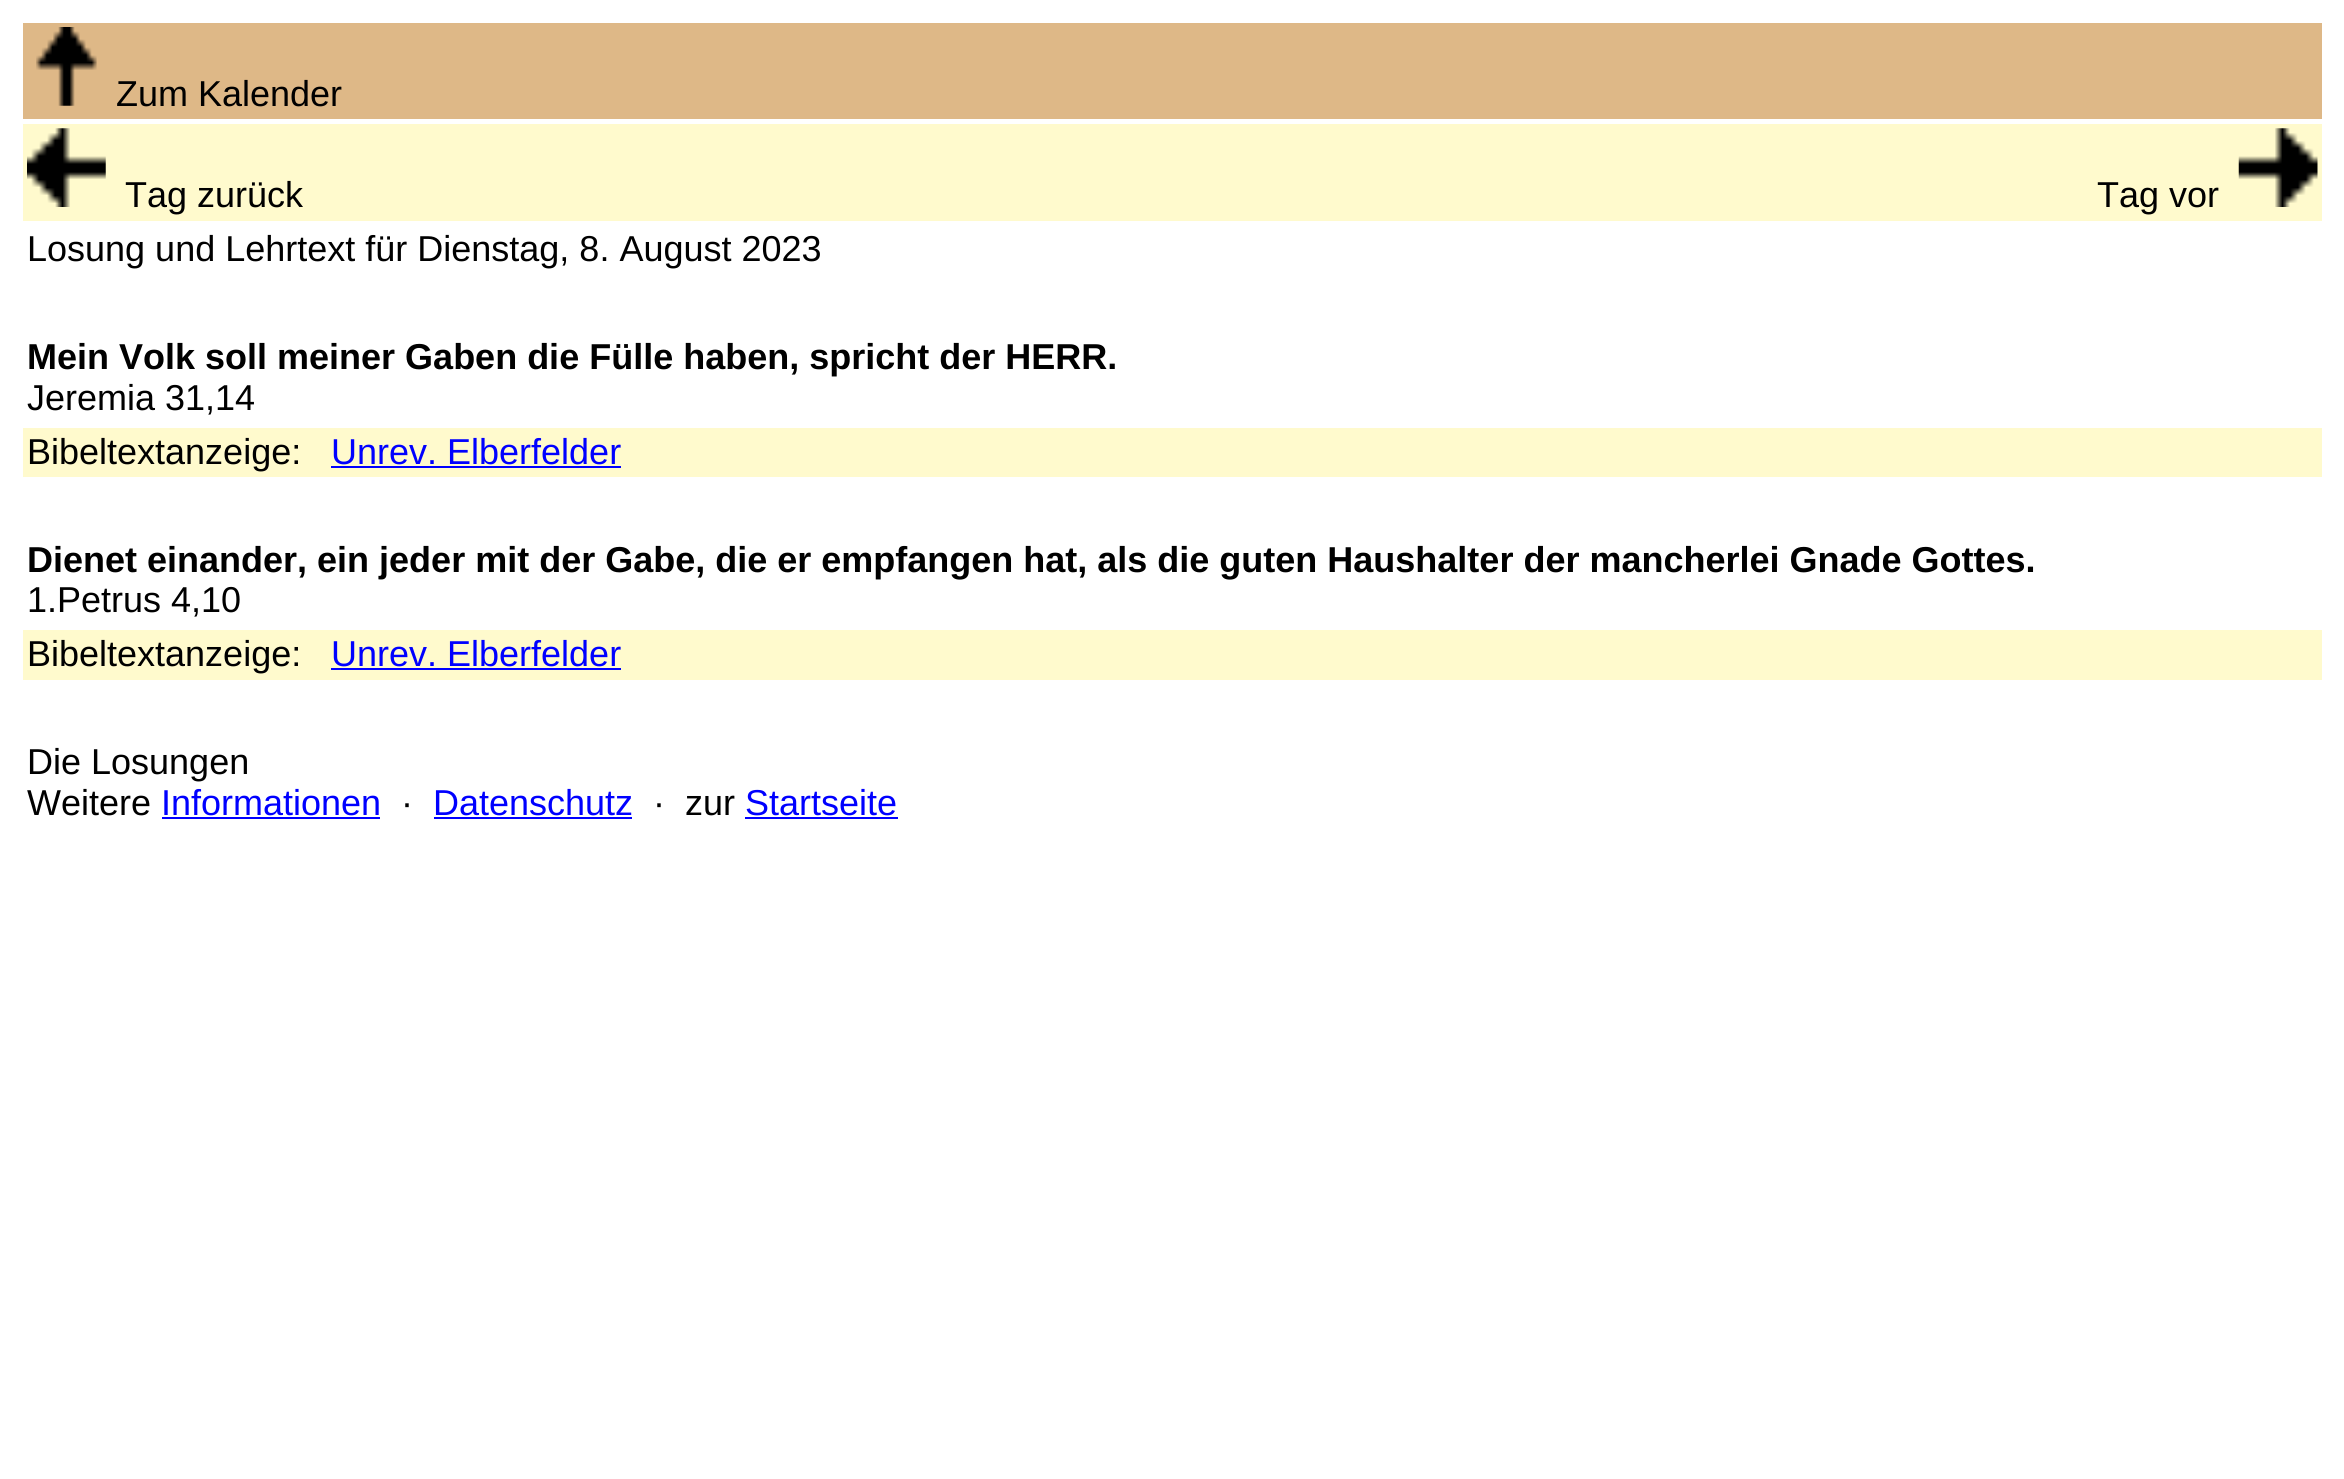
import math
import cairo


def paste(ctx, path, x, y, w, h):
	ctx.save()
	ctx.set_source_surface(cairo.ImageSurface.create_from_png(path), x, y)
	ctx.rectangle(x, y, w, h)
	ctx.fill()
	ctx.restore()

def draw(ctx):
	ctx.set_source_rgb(1, 1, 1)
	ctx.paint()
	ctx.set_source_rgb(0.871, 0.722, 0.529)
	ctx.rectangle(23, 23, 2299, 96)
	ctx.fill()
	paste(ctx, 'media/1.png', 36, 27, 61, 79)
	ctx.select_font_face('Liberation Sans')
	ctx.set_font_size(36)
	ctx.set_source_rgb(0, 0, 0)
	ctx.move_to(116, 106)
	ctx.show_text('Zum Kalender')
	ctx.set_source_rgb(1, 0.98, 0.804)
	ctx.rectangle(23, 124, 2299, 97)
	ctx.fill()
	paste(ctx, 'media/2.png', 27, 128, 79, 79)
	ctx.set_source_rgb(0, 0, 0)
	ctx.move_to(125, 207)
	ctx.show_text('Tag zurück')
	ctx.move_to(2097, 207)
	ctx.show_text('Tag vor')
	paste(ctx, 'media/3.png', 2238, 128, 80, 79)
	ctx.move_to(27, 261)
	ctx.show_text('Losung und Lehrtext für Dienstag, 8. August 2023')
	ctx.select_font_face('Liberation Sans', cairo.FONT_SLANT_NORMAL, cairo.FONT_WEIGHT_BOLD)
	ctx.move_to(27, 369)
	ctx.show_text('Mein Volk soll meiner Gaben die Fülle haben, spricht der HERR.')
	ctx.select_font_face('Liberation Sans')
	ctx.move_to(27, 410)
	ctx.show_text('Jeremia 31,14')
	ctx.set_source_rgb(1, 0.98, 0.804)
	ctx.rectangle(23, 428, 2299, 49)
	ctx.fill()
	ctx.set_source_rgb(0, 0, 0)
	ctx.move_to(27, 464)
	ctx.show_text('Bibeltextanzeige:')
	ctx.set_source_rgb(0, 0, 1)
	ctx.move_to(331, 464)
	ctx.show_text('Unrev. Elberfelder')
	ctx.rectangle(331, 466, 290, 2)
	ctx.fill()
	ctx.select_font_face('Liberation Sans', cairo.FONT_SLANT_NORMAL, cairo.FONT_WEIGHT_BOLD)
	ctx.set_source_rgb(0, 0, 0)
	ctx.move_to(27, 572)
	ctx.show_text('Dienet einander, ein jeder mit der Gabe, die er empfangen hat, als die guten Haushalter der mancherlei Gnade Gottes.')
	ctx.select_font_face('Liberation Sans')
	ctx.move_to(27, 612)
	ctx.show_text('1.Petrus 4,10')
	ctx.set_source_rgb(1, 0.98, 0.804)
	ctx.rectangle(23, 630, 2299, 50)
	ctx.fill()
	ctx.set_source_rgb(0, 0, 0)
	ctx.move_to(27, 666)
	ctx.show_text('Bibeltextanzeige:')
	ctx.set_source_rgb(0, 0, 1)
	ctx.move_to(331, 666)
	ctx.show_text('Unrev. Elberfelder')
	ctx.rectangle(331, 668, 290, 2)
	ctx.fill()
	ctx.set_source_rgb(0, 0, 0)
	ctx.move_to(27, 774)
	ctx.show_text('Die Losungen')
	ctx.move_to(27, 815)
	ctx.show_text('Weitere')
	ctx.set_source_rgb(0, 0, 1)
	ctx.move_to(161, 815)
	ctx.show_text('Informationen')
	ctx.rectangle(162, 817, 218, 2)
	ctx.fill()
	ctx.set_source_rgb(0, 0, 0)
	ctx.move_to(401, 815)
	ctx.show_text('·')
	ctx.set_source_rgb(0, 0, 1)
	ctx.move_to(433, 815)
	ctx.show_text('Datenschutz')
	ctx.rectangle(434, 817, 198, 2)
	ctx.fill()
	ctx.set_source_rgb(0, 0, 0)
	ctx.move_to(653, 815)
	ctx.show_text('·  zur')
	ctx.set_source_rgb(0, 0, 1)
	ctx.move_to(745, 815)
	ctx.show_text('Startseite')
	ctx.rectangle(745, 817, 153, 2)
	ctx.fill()


surface = cairo.ImageSurface(cairo.FORMAT_RGB24, 2344, 1479)
ctx = cairo.Context(surface)
options = cairo.FontOptions()
options.set_hint_metrics(cairo.HINT_METRICS_OFF)
options.set_hint_style(cairo.HINT_STYLE_NONE)
ctx.set_font_options(options)
ctx.set_miter_limit(4)
draw(ctx)
surface.write_to_png('image.png')
